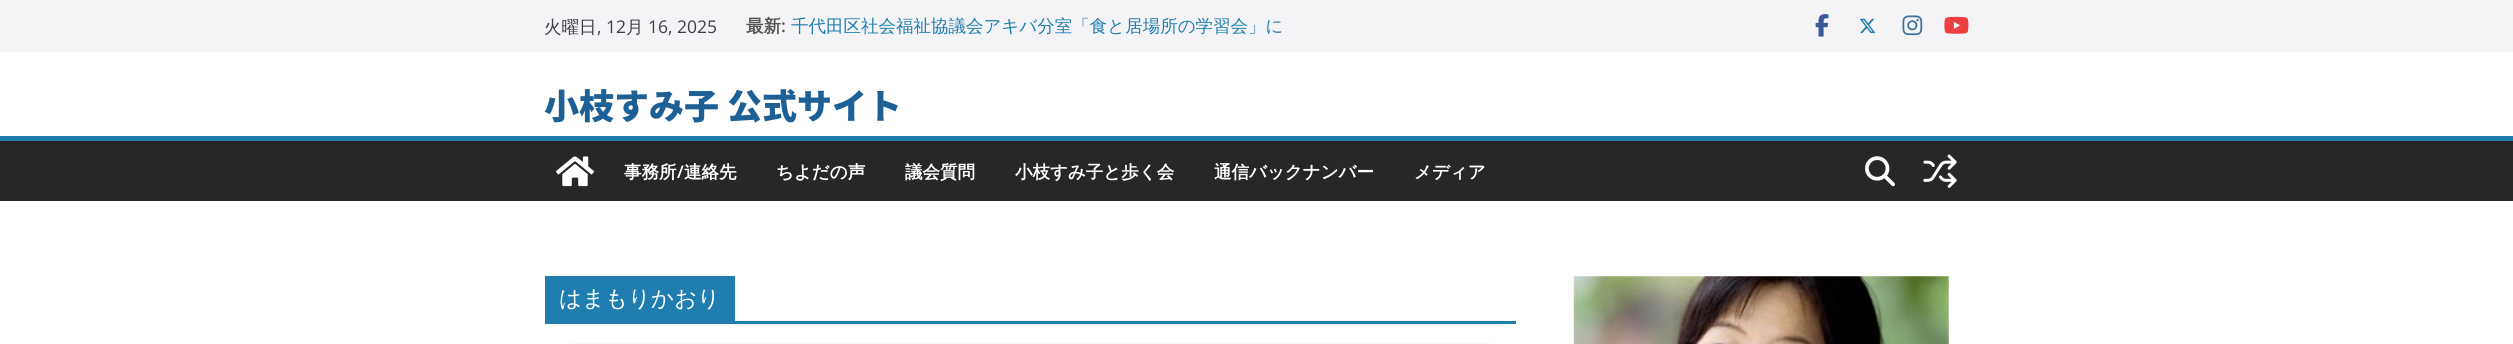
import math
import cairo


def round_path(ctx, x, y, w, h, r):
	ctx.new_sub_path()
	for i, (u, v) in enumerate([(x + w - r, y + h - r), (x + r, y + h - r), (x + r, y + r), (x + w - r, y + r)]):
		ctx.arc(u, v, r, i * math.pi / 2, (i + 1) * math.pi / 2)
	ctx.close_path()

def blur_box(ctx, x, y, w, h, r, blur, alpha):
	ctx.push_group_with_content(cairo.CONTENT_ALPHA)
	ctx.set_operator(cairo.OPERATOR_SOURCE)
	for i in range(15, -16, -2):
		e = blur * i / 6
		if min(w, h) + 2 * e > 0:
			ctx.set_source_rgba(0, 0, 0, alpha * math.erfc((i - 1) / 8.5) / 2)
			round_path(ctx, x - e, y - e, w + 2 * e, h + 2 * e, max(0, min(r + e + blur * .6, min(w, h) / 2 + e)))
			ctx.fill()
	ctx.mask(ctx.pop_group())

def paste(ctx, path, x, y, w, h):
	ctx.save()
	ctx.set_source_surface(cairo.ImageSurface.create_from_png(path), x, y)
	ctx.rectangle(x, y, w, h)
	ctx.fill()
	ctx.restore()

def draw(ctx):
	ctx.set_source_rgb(1, 1, 1)
	ctx.paint()
	ctx.set_source_rgb(0, 0, 0)
	blur_box(ctx, 0, 0, 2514, 51, 0, 1, 0.1)
	ctx.set_source_rgb(0.957, 0.957, 0.961)
	ctx.rectangle(0, 0, 2513, 51)
	ctx.fill()
	ctx.select_font_face('WenQuanYi Zen Hei Medium')
	ctx.set_font_size(17.5)
	ctx.set_source_rgb(0.247, 0.247, 0.275)
	ctx.move_to(544, 33)
	ctx.show_text('火曜日')
	ctx.select_font_face('Open Sans')
	ctx.move_to(597, 33)
	ctx.show_text(', 12')
	ctx.select_font_face('WenQuanYi Zen Hei Medium')
	ctx.move_to(626, 33)
	ctx.show_text('月')
	ctx.select_font_face('Open Sans')
	ctx.move_to(648, 33)
	ctx.show_text('16, 2025')
	ctx.select_font_face('WenQuanYi Zen Hei', cairo.FONT_SLANT_NORMAL, cairo.FONT_WEIGHT_BOLD)
	ctx.set_source_rgb(0.333, 0.333, 0.333)
	ctx.move_to(746, 32)
	ctx.show_text('最新')
	ctx.select_font_face('Open Sans SemiBold')
	ctx.move_to(781, 32)
	ctx.show_text(':')
	ctx.select_font_face('WenQuanYi Zen Hei Medium')
	ctx.set_source_rgb(0.125, 0.49, 0.686)
	ctx.move_to(791, 32)
	ctx.show_text('千代田区社会福祉協議会アキバ分室「食と居場所の学習会」に')
	paste(ctx, 'media/1.png', 1815, 14, 14, 23)
	paste(ctx, 'media/2.png', 1859, 18, 17, 16)
	paste(ctx, 'media/3.png', 1902, 15, 21, 21)
	paste(ctx, 'media/4.png', 1944, 16, 25, 18)
	ctx.select_font_face('Noto Sans JP Black')
	ctx.set_font_size(35)
	ctx.set_source_rgb(0.114, 0.376, 0.588)
	ctx.move_to(544, 119)
	ctx.show_text('小枝すみ子 公式サイト')
	ctx.set_source_rgb(0.153, 0.153, 0.165)
	ctx.rectangle(0, 141, 2513, 60)
	ctx.fill()
	ctx.set_source_rgb(0.125, 0.49, 0.686)
	ctx.rectangle(0, 136, 2513, 5)
	ctx.fill()
	paste(ctx, 'media/5.png', 556, 156, 38, 31)
	ctx.select_font_face('WenQuanYi Zen Hei', cairo.FONT_SLANT_NORMAL, cairo.FONT_WEIGHT_BOLD)
	ctx.set_font_size(17.5)
	ctx.set_source_rgb(1, 1, 1)
	ctx.move_to(624, 178)
	ctx.show_text('事務所')
	ctx.select_font_face('Open Sans SemiBold')
	ctx.move_to(677, 178)
	ctx.show_text('/')
	ctx.select_font_face('WenQuanYi Zen Hei', cairo.FONT_SLANT_NORMAL, cairo.FONT_WEIGHT_BOLD)
	for x, y, s in [
		(684, 178, '連絡先'),
		(776, 178, 'ちよだの声'),
		(905, 178, '議会質問'),
		(1015, 178, '小枝すみ子と歩く会'),
		(1214, 178, '通信バックナンバー'),
		(1414, 178, 'メディア'),
	]:
		ctx.move_to(x, y)
		ctx.show_text(s)
	paste(ctx, 'media/6.png', 1865, 156, 30, 31)
	paste(ctx, 'media/7.png', 1923, 154, 34, 34)
	ctx.set_source_rgb(0.125, 0.49, 0.686)
	ctx.rectangle(545, 321, 971, 3)
	ctx.fill()
	ctx.rectangle(545, 276, 190, 45)
	ctx.fill()
	ctx.select_font_face('WenQuanYi Zen Hei Medium')
	ctx.set_font_size(22.5)
	ctx.set_source_rgb(1, 1, 1)
	ctx.move_to(559, 306)
	ctx.show_text('はまもりかおり')
	paste(ctx, 'media/8.png', 570, 343, 921, 1)
	paste(ctx, 'media/9.png', 1573, 276, 376, 68)


surface = cairo.ImageSurface(cairo.FORMAT_RGB24, 2513, 344)
ctx = cairo.Context(surface)
options = cairo.FontOptions()
options.set_hint_metrics(cairo.HINT_METRICS_OFF)
options.set_hint_style(cairo.HINT_STYLE_NONE)
ctx.set_font_options(options)
ctx.set_miter_limit(4)
draw(ctx)
surface.write_to_png('image.png')
